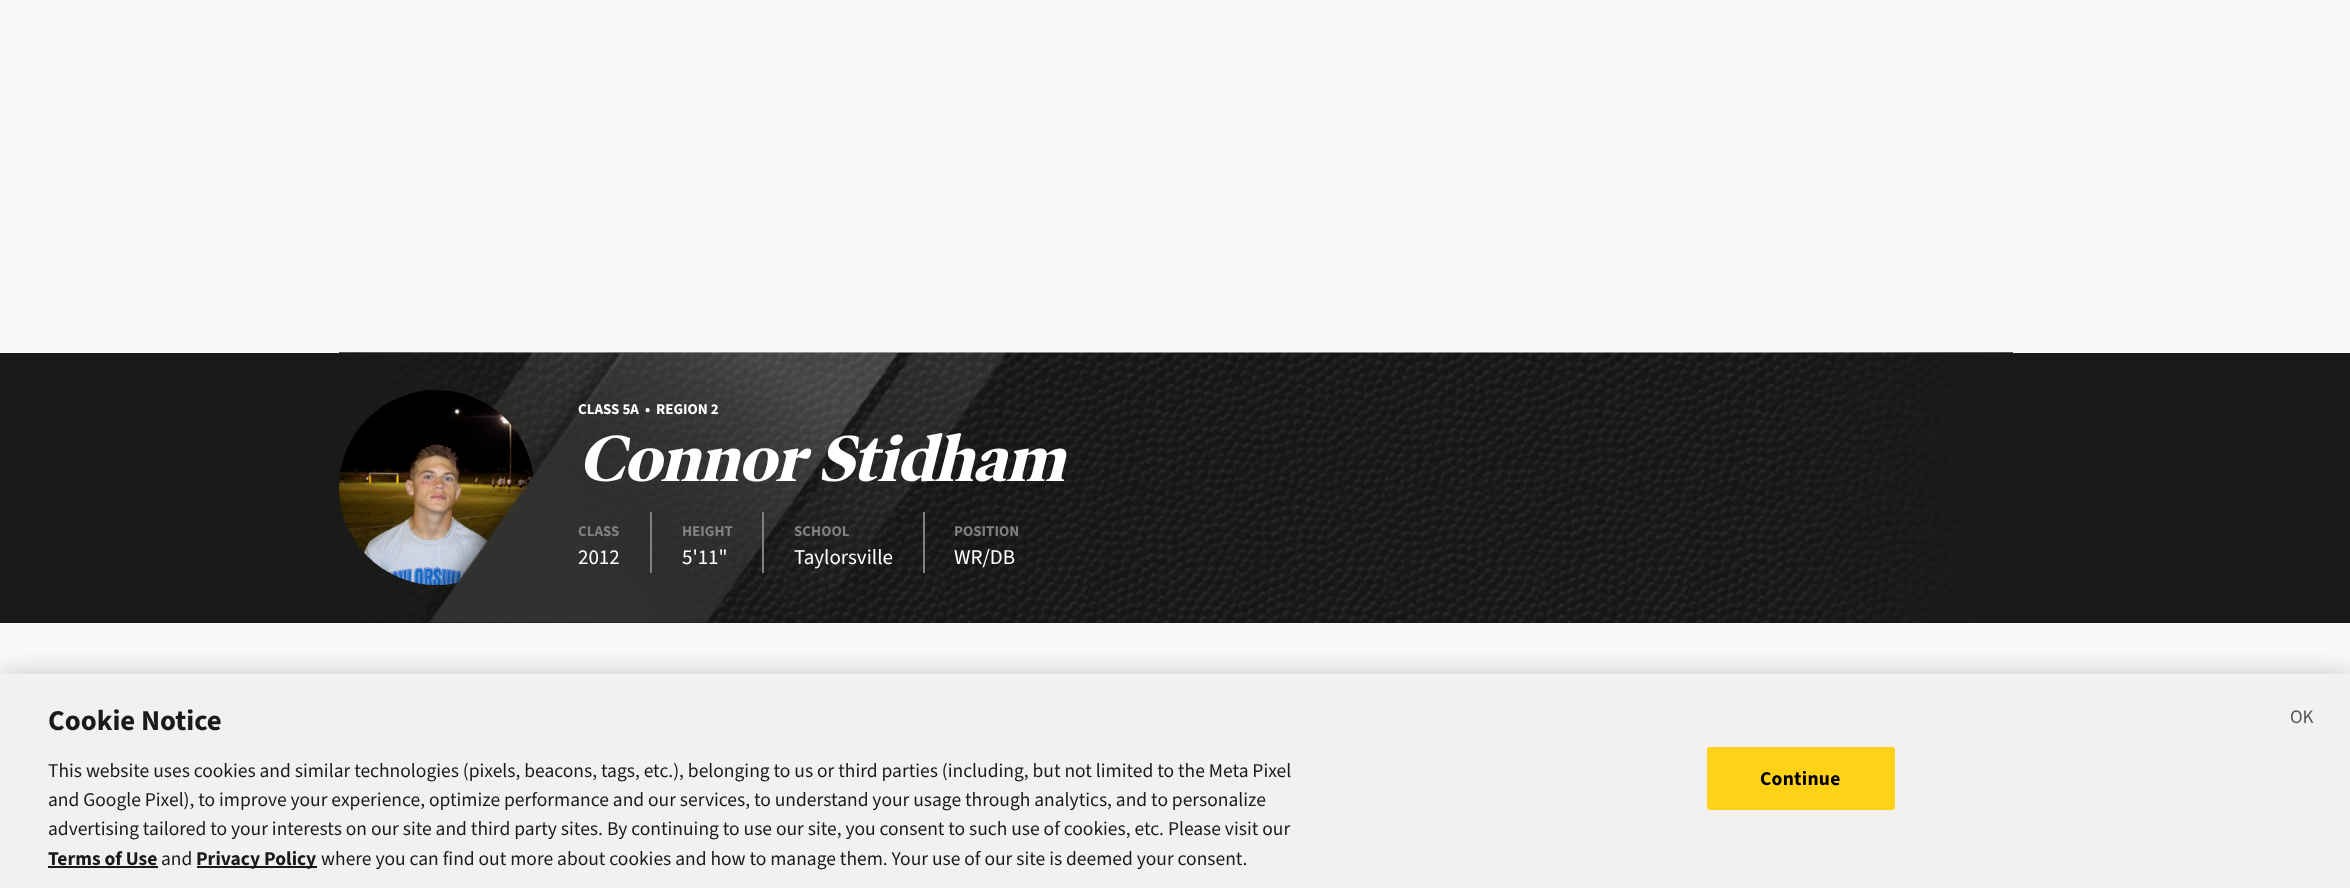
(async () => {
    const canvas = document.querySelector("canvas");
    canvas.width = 2350;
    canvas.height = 888;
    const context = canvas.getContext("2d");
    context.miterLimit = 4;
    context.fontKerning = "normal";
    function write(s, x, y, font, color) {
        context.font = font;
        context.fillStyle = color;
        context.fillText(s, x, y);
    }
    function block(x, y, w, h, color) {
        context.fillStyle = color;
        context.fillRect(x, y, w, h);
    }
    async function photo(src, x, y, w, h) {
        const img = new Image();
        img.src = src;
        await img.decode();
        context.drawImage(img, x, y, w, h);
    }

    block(0, 0, 2350, 888, "rgb(250, 249, 247)");
    block(0, 353, 2350, 270, "rgb(26, 26, 25)");
    await photo("media/1.png", 339, 352, 1674, 271);
    await photo("media/4.png", 447, 352, 179, 235);
    await photo("media/3.png", 339, 390, 195, 195);
    await photo("media/2.png", 427, 352, 580, 271);
    write("CLASS 5A  •  REGION 2", 578, 414, "bold 15px 'Source Sans 3'", "rgb(255, 255, 255)");
    write("Connor Stidham", 578, 481, "italic bold 66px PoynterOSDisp", "rgb(255, 255, 255)");
    block(650, 512, 2, 61, "rgb(128, 128, 128)");
    write("CLASS", 578, 536, "bold 15px 'Source Sans 3'", "rgb(128, 128, 128)");
    write("2012", 578, 564, "21px 'Source Sans 3'", "rgb(255, 255, 255)");
    block(762, 512, 2, 61, "rgb(128, 128, 128)");
    write("HEIGHT", 682, 536, "bold 15px 'Source Sans 3'", "rgb(128, 128, 128)");
    write("5'11\"", 682, 564, "21px 'Source Sans 3'", "rgb(255, 255, 255)");
    block(923, 512, 2, 61, "rgb(128, 128, 128)");
    write("SCHOOL", 794, 536, "bold 15px 'Source Sans 3'", "rgb(128, 128, 128)");
    write("Taylorsville", 794, 564, "21px 'Source Sans 3'", "rgb(255, 255, 255)");
    write("POSITION", 954, 536, "bold 15px 'Source Sans 3'", "rgb(128, 128, 128)");
    write("WR/DB", 954, 564, "21px 'Source Sans 3'", "rgb(255, 255, 255)");
    context.fillStyle = "rgba(0, 0, 0, 0.2)";
    context.filter = "blur(13.5px)";
    context.beginPath();
    context.rect(0, 674, 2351, 214);
    context.fill();
    context.filter = "none";
    block(0, 674, 2350, 214, "rgb(243, 241, 240)");
    write("Cookie Notice", 48, 730, "bold 28.75px 'Source Sans 3'", "rgb(26, 26, 25)");
    write("This website uses cookies and similar technologies (pixels, beacons, tags, etc.), belonging to us or third parties (including, but not limited to the Meta Pixel", 48, 777, "19.5px 'Source Sans 3'", "rgb(26, 26, 25)");
    write("and Google Pixel), to improve your experience, optimize performance and our services, to understand your usage through analytics, and to personalize", 48, 806, "19.5px 'Source Sans 3'", "rgb(26, 26, 25)");
    write("advertising tailored to your interests on our site and third party sites.", 48, 835, "19.5px 'Source Sans 3'", "rgb(26, 26, 25)");
    write("By continuing to use our site, you consent to such use of cookies, etc. Please visit our", 607, 835, "19.5px 'Source Sans 3'", "rgb(26, 26, 25)");
    write("Terms of Use", 48, 865, "bold 19.5px 'Source Sans 3'", "rgb(26, 26, 25)");
    block(48, 866, 110, 2, "rgb(26, 26, 25)");
    write("and", 161, 865, "19.5px 'Source Sans 3'", "rgb(26, 26, 25)");
    block(197, 866, 120, 2, "rgb(26, 26, 25)");
    write("Privacy Policy", 196, 865, "bold 19.5px 'Source Sans 3'", "rgb(26, 26, 25)");
    write("where you can find out more about cookies and how to manage them. Your use of our site is deemed your consent.", 321, 865, "19.5px 'Source Sans 3'", "rgb(26, 26, 25)");
    context.fillStyle = "rgb(255, 210, 23)";
    context.beginPath();
    context.roundRect(1708, 748, 186, 61, 2);
    context.fill();
    context.strokeStyle = "rgb(255, 210, 23)";
    context.lineWidth = 2;
    context.stroke();
    context.letterSpacing = "0.25px";
    write("Continue", 1760, 785, "bold 19.5px 'Source Sans 3'", "rgb(0, 0, 0)");
    context.letterSpacing = "0px";
    write("OK", 2290, 723, "19px 'Source Sans 3'", "rgb(85, 85, 85)");
})();
